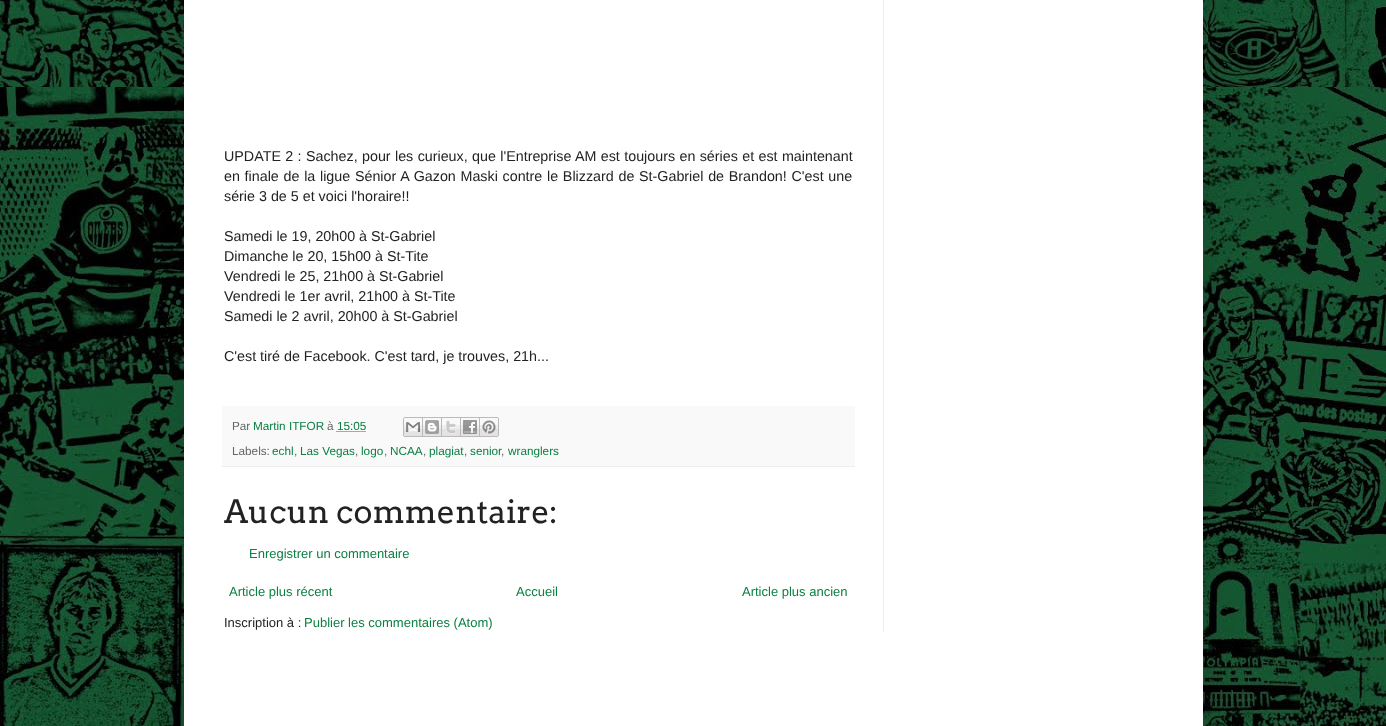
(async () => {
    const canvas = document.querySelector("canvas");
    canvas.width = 1386;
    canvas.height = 726;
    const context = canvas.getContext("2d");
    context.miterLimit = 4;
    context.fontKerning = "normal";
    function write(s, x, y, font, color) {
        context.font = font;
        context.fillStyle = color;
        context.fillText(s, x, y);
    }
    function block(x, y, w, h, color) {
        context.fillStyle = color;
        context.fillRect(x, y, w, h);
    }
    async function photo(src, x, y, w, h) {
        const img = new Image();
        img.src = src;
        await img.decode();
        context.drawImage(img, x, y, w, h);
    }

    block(0, 0, 1386, 726, "rgb(255, 255, 255)");
    await photo("media/1.png", 0, 0, 1386, 726);
    context.fillStyle = "rgba(0, 0, 0, 0.15)";
    context.filter = "blur(20px)";
    context.beginPath();
    context.rect(184, -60, 1019, 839);
    context.fill();
    context.filter = "none";
    block(184, 0, 1019, 726, "rgb(255, 255, 255)");
    context.wordSpacing = "0.4px";
    write("UPDATE 2 : Sachez, pour les curieux, que l'Entreprise AM est toujours en séries et est maintenant", 224, 161, "14.3px Liberation Sans", "rgb(34, 34, 34)");
    context.wordSpacing = "0.75px";
    write("en finale de la ligue Sénior A Gazon Maski contre le Blizzard de St-Gabriel de Brandon! C'est une", 224, 181, "14.3px Liberation Sans", "rgb(34, 34, 34)");
    context.wordSpacing = "0px";
    write("série 3 de 5 et voici l'horaire!!", 224, 201, "14.3px Liberation Sans", "rgb(34, 34, 34)");
    write("Samedi le 19, 20h00 à St-Gabriel", 224, 241, "14.3px Liberation Sans", "rgb(34, 34, 34)");
    write("Dimanche le 20, 15h00 à St-Tite", 224, 261, "14.3px Liberation Sans", "rgb(34, 34, 34)");
    write("Vendredi le 25, 21h00 à St-Gabriel", 224, 281, "14.3px Liberation Sans", "rgb(34, 34, 34)");
    write("Vendredi le 1er avril, 21h00 à St-Tite", 224, 301, "14.3px Liberation Sans", "rgb(34, 34, 34)");
    write("Samedi le 2 avril, 20h00 à St-Gabriel", 224, 321, "14.3px Liberation Sans", "rgb(34, 34, 34)");
    write("C'est tiré de Facebook. C'est tard, je trouves, 21h...", 224, 361, "14.3px Liberation Sans", "rgb(34, 34, 34)");
    block(222, 406, 633, 60, "rgb(249, 249, 249)");
    block(222, 466, 633, 1, "rgb(238, 238, 238)");
    write("Par", 232, 430, "11.75px Liberation Sans", "rgb(102, 102, 102)");
    write("Martin ITFOR", 253, 430, "11.75px Liberation Sans", "rgb(11, 128, 67)");
    write("à", 327, 430, "11.75px Liberation Sans", "rgb(102, 102, 102)");
    write("15:05", 337, 430, "11.75px Liberation Sans", "rgb(11, 128, 67)");
    context.beginPath();
    context.moveTo(336.5, 431.5);
    context.lineTo(366, 431.5);
    context.strokeStyle = "rgb(11, 128, 67)";
    context.setLineDash([1, 1]);
    context.stroke();
    await photo("media/2.png", 403, 417, 20, 20);
    await photo("media/3.png", 423, 417, 19, 20);
    await photo("media/4.png", 442, 417, 19, 20);
    await photo("media/5.png", 461, 417, 19, 20);
    await photo("media/6.png", 480, 417, 19, 20);
    write("Labels:", 232, 455, "11.75px Liberation Sans", "rgb(102, 102, 102)");
    write("echl", 272, 455, "11.75px Liberation Sans", "rgb(11, 128, 67)");
    write(",", 294, 455, "11.75px Liberation Sans", "rgb(102, 102, 102)");
    write("Las Vegas", 300, 455, "11.75px Liberation Sans", "rgb(11, 128, 67)");
    write(",", 355, 455, "11.75px Liberation Sans", "rgb(102, 102, 102)");
    write("logo", 361, 455, "11.75px Liberation Sans", "rgb(11, 128, 67)");
    write(",", 384, 455, "11.75px Liberation Sans", "rgb(102, 102, 102)");
    write("NCAA", 390, 455, "11.75px Liberation Sans", "rgb(11, 128, 67)");
    write(",", 423, 455, "11.75px Liberation Sans", "rgb(102, 102, 102)");
    write("plagiat", 429, 455, "11.75px Liberation Sans", "rgb(11, 128, 67)");
    write(",", 464, 455, "11.75px Liberation Sans", "rgb(102, 102, 102)");
    write("senior", 470, 455, "11.75px Liberation Sans", "rgb(11, 128, 67)");
    write(",", 501, 455, "11.75px Liberation Sans", "rgb(102, 102, 102)");
    write("wranglers", 508, 455, "11.75px Liberation Sans", "rgb(11, 128, 67)");
    write("Aucun commentaire:", 224, 523, "32px Arvo", "rgb(34, 34, 34)");
    write("Enregistrer un commentaire", 249, 558, "13px Liberation Sans", "rgb(11, 128, 67)");
    write("Article plus récent", 229, 596, "13px Liberation Sans", "rgb(11, 128, 67)");
    write("Accueil", 516, 596, "13px Liberation Sans", "rgb(11, 128, 67)");
    write("Article plus ancien", 742, 596, "13px Liberation Sans", "rgb(11, 128, 67)");
    write("Inscription à :", 224, 627, "13px Liberation Sans", "rgb(34, 34, 34)");
    write("Publier les commentaires (Atom)", 304, 627, "13px Liberation Sans", "rgb(11, 128, 67)");
    block(883, 0, 1, 632, "rgb(238, 238, 238)");
})();
